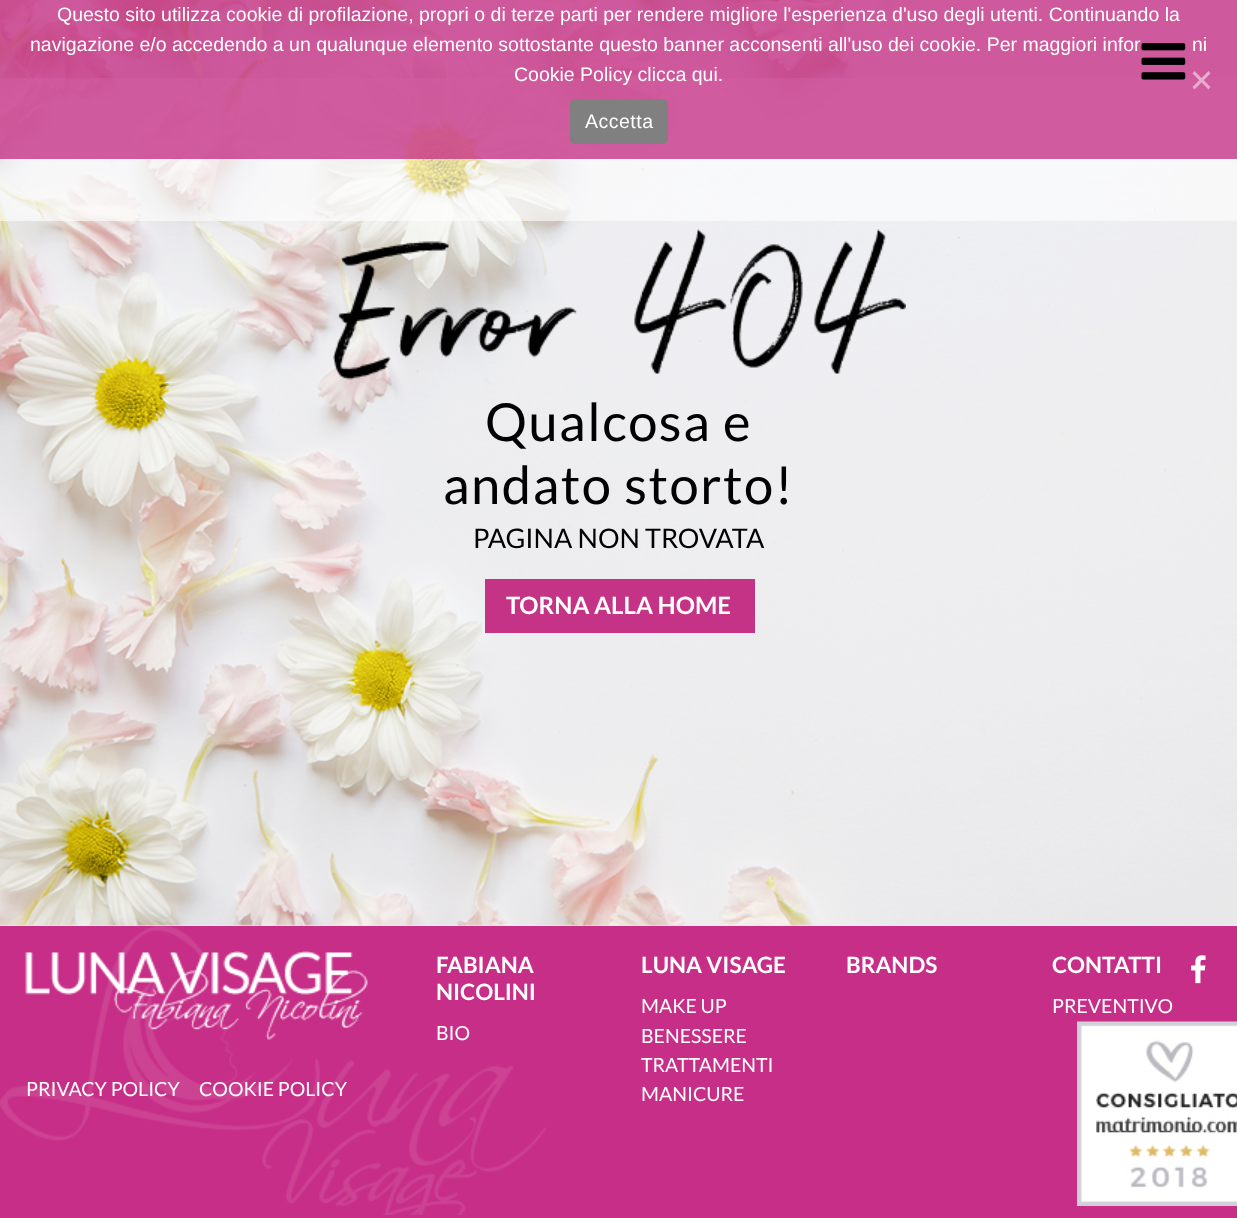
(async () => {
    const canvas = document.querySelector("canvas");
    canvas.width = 1237;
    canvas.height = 1218;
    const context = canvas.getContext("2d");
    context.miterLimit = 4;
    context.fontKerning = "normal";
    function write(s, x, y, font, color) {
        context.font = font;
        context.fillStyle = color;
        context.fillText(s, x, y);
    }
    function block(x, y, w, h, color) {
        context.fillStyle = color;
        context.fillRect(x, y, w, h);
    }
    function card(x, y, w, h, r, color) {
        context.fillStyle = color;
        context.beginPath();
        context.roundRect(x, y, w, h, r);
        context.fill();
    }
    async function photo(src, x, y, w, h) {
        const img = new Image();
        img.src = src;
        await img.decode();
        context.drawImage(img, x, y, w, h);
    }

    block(0, 0, 1237, 1218, "rgb(237, 237, 239)");
    await photo("media/1.png", 0, 0, 1237, 926);
    block(0, 78, 1237, 143, "rgba(255, 255, 255, 0.6)");
    block(0, 0, 1237, 159, "rgba(197, 51, 135, 0.8)");
    write("Questo sito utilizza cookie di profilazione, propri o di terze parti per rendere migliore l'esperienza d'uso degli utenti. Continuando la", 57, 21, "19.5px Liberation Sans", "rgb(255, 255, 255)");
    write("navigazione e/o accedendo a un qualunque elemento sottostante questo banner acconsenti all'uso dei cookie. Per maggiori infor", 30, 51, "19.5px Liberation Sans", "rgb(255, 255, 255)");
    write("ni", 1192, 51, "19.5px Liberation Sans", "rgb(255, 255, 255)");
    write("Cookie Policy clicca qui.", 514, 81, "19.5px Liberation Sans", "rgb(255, 255, 255)");
    context.fillStyle = "rgb(231, 172, 206)";
    context.beginPath();
    context.moveTo(1208.5, 71);
    context.lineTo(1210.5, 73.5);
    context.lineTo(1194.5, 89.5);
    context.lineTo(1192.5, 87);
    context.closePath();
    context.fill();
    context.beginPath();
    context.moveTo(1192.5, 73.5);
    context.lineTo(1194.5, 71);
    context.lineTo(1210.5, 87);
    context.lineTo(1208.5, 89.5);
    context.closePath();
    context.fill();
    card(570, 99, 98, 45, 5, "rgb(128, 128, 128)");
    context.letterSpacing = "0.5px";
    write("Accetta", 585, 128, "19.5px Liberation Sans", "rgb(255, 255, 255)");
    await photo("media/2.png", 333, 229, 573, 151);
    context.letterSpacing = "1.5px";
    write("Qualcosa e", 485, 441, "52.5px Lato", "rgb(0, 0, 0)");
    write("andato storto!", 443, 504, "52.5px Lato", "rgb(0, 0, 0)");
    context.letterSpacing = "0px";
    write("PAGINA NON TROVATA", 473, 548, "27px Lato", "rgb(0, 0, 0)");
    block(485, 579, 270, 54, "rgb(197, 51, 135)");
    write("TORNA ALLA HOME", 506, 614, "bold 24px Lato", "rgb(255, 255, 255)");
    block(0, 926, 1237, 292, "rgb(199, 46, 136)");
    await photo("media/3.png", 0, 926, 546, 289);
    write("FABIANA", 436, 973, "bold 22.5px Lato", "rgb(255, 255, 255)");
    write("NICOLINI", 436, 1000, "bold 22.5px Lato", "rgb(255, 255, 255)");
    write("BIO", 436, 1040, "19.5px Lato", "rgb(255, 255, 255)");
    write("LUNA VISAGE", 641, 973, "bold 22.5px Lato", "rgb(255, 255, 255)");
    write("MAKE UP", 641, 1013, "19.5px Lato", "rgb(255, 255, 255)");
    write("BENESSERE", 641, 1043, "19.5px Lato", "rgb(255, 255, 255)");
    write("TRATTAMENTI", 641, 1072, "19.5px Lato", "rgb(255, 255, 255)");
    write("MANICURE", 641, 1101, "19.5px Lato", "rgb(255, 255, 255)");
    write("BRANDS", 846, 973, "bold 22.5px Lato", "rgb(255, 255, 255)");
    write("CONTATTI", 1052, 973, "bold 22.5px Lato", "rgb(255, 255, 255)");
    await photo("media/4.png", 1191, 955, 15, 29);
    write("PREVENTIVO", 1052, 1013, "19.5px Lato", "rgb(255, 255, 255)");
    await photo("media/5.png", 1077, 1021, 160, 185);
    await photo("media/6.png", 25, 951, 343, 89);
    write("PRIVACY POLICY", 26, 1096, "19.5px Lato", "rgb(255, 255, 255)");
    write("COOKIE POLICY", 199, 1096, "19.5px Lato", "rgb(255, 255, 255)");
    await photo("media/7.png", 1141, 43, 45, 37);
})();
